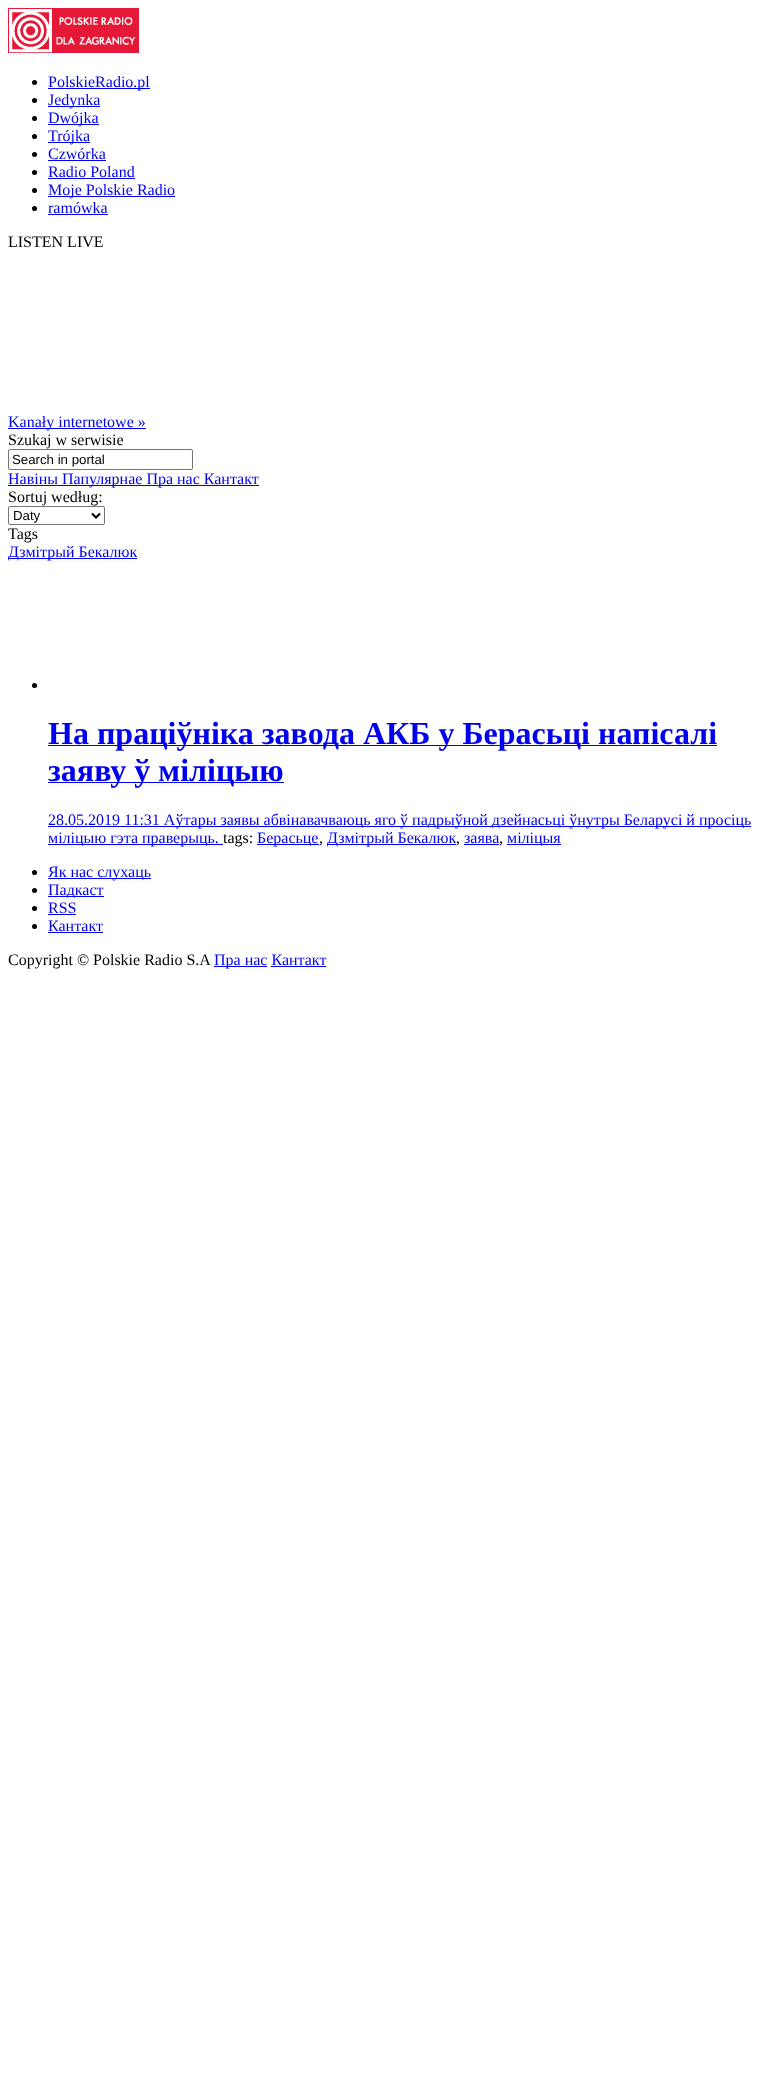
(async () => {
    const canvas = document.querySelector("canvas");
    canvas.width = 778;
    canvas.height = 2086;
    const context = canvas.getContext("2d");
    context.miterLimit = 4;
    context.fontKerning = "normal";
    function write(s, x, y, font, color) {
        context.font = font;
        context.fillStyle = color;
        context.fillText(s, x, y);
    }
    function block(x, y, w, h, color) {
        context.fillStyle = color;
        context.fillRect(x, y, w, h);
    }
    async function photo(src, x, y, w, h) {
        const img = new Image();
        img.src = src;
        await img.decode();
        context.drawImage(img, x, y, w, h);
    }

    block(0, 0, 778, 2086, "rgb(255, 255, 255)");
    await photo("media/1.png", 8, 8, 131, 45);
    context.fillStyle = "rgb(0, 0, 0)";
    context.beginPath();
    context.arc(34.5, 82.5, 2.5, 0, Math.PI * 2);
    context.fill();
    block(48, 88, 102, 1, "rgb(0, 0, 238)");
    write("PolskieRadio.pl", 48, 87, "16px Liberation Serif", "rgb(0, 0, 238)");
    context.fillStyle = "rgb(0, 0, 0)";
    context.beginPath();
    context.arc(34.5, 100.5, 2.5, 0, Math.PI * 2);
    context.fill();
    block(48, 106, 52, 1, "rgb(0, 0, 238)");
    write("Jedynka", 48, 105, "16px Liberation Serif", "rgb(0, 0, 238)");
    context.fillStyle = "rgb(0, 0, 0)";
    context.beginPath();
    context.arc(34.5, 118.5, 2.5, 0, Math.PI * 2);
    context.fill();
    block(48, 124, 51, 1, "rgb(0, 0, 238)");
    write("Dwójka", 48, 123, "16px Liberation Serif", "rgb(0, 0, 238)");
    context.fillStyle = "rgb(0, 0, 0)";
    context.beginPath();
    context.arc(34.5, 136.5, 2.5, 0, Math.PI * 2);
    context.fill();
    block(48, 142, 42, 1, "rgb(0, 0, 238)");
    write("Trójka", 48, 141, "16px Liberation Serif", "rgb(0, 0, 238)");
    context.fillStyle = "rgb(0, 0, 0)";
    context.beginPath();
    context.arc(34.5, 154.5, 2.5, 0, Math.PI * 2);
    context.fill();
    write("Czwórka", 48, 159, "16px Liberation Serif", "rgb(0, 0, 238)");
    block(48, 160, 58, 1, "rgb(0, 0, 238)");
    context.fillStyle = "rgb(0, 0, 0)";
    context.beginPath();
    context.arc(34.5, 172.5, 2.5, 0, Math.PI * 2);
    context.fill();
    write("Radio Poland", 48, 177, "16px Liberation Serif", "rgb(0, 0, 238)");
    block(48, 178, 87, 1, "rgb(0, 0, 238)");
    context.fillStyle = "rgb(0, 0, 0)";
    context.beginPath();
    context.arc(34.5, 190.5, 2.5, 0, Math.PI * 2);
    context.fill();
    block(48, 196, 127, 1, "rgb(0, 0, 238)");
    write("Moje Polskie Radio", 48, 195, "16px Liberation Serif", "rgb(0, 0, 238)");
    context.fillStyle = "rgb(0, 0, 0)";
    context.beginPath();
    context.arc(34.5, 208.5, 2.5, 0, Math.PI * 2);
    context.fill();
    write("ramówka", 48, 213, "16px Liberation Serif", "rgb(0, 0, 238)");
    block(48, 214, 60, 1, "rgb(0, 0, 238)");
    write("LISTEN LIVE", 8, 247, "16px Liberation Serif", "rgb(0, 0, 0)");
    block(8, 428, 138, 1, "rgb(0, 0, 238)");
    write("Kanały internetowe »", 8, 427, "16px Liberation Serif", "rgb(0, 0, 238)");
    write("Szukaj w serwisie", 8, 445, "16px Liberation Serif", "rgb(0, 0, 0)");
    context.beginPath();
    context.roundRect(8.5, 449.5, 184, 20, 1.5);
    context.strokeStyle = "rgb(118, 118, 118)";
    context.stroke();
    write("Search in portal", 12, 464, "13.25px Liberation Sans", "rgb(0, 0, 0)");
    block(8, 485, 251, 1, "rgb(0, 0, 238)");
    write("Навіны Папулярнае Пра нас Кантакт", 8, 484, "16px Liberation Serif", "rgb(0, 0, 238)");
    write("Sortuj według:", 8, 502, "16px Liberation Serif", "rgb(0, 0, 0)");
    context.beginPath();
    context.roundRect(8.5, 506.5, 96, 18, 1.5);
    context.stroke();
    context.beginPath();
    context.moveTo(92, 513.5);
    context.lineTo(96, 517.5);
    context.lineTo(100, 513.5);
    context.strokeStyle = "rgb(0, 0, 0)";
    context.lineWidth = 2;
    context.stroke();
    write("Daty", 13, 520, "13.25px Liberation Sans", "rgb(0, 0, 0)");
    write("Tags", 8, 539, "16px Liberation Serif", "rgb(0, 0, 0)");
    block(8, 558, 129, 1, "rgb(0, 0, 238)");
    write("Дзмітрый Бекалюк", 8, 557, "16px Liberation Serif", "rgb(0, 0, 238)");
    context.fillStyle = "rgb(0, 0, 0)";
    context.beginPath();
    context.arc(34.5, 685.5, 2.5, 0, Math.PI * 2);
    context.fill();
    block(48, 745, 669, 1, "rgb(0, 0, 238)");
    write("На праціўніка завода АКБ у Берасьці напісалі", 48, 744, "bold 32px Liberation Serif", "rgb(0, 0, 238)");
    block(48, 782, 236, 1, "rgb(0, 0, 238)");
    write("заяву ў міліцыю", 48, 781, "bold 32px Liberation Serif", "rgb(0, 0, 238)");
    block(48, 826, 703, 1, "rgb(0, 0, 238)");
    write("28.05.2019 11:31 Аўтары заявы абвінавачваюць яго ў падрыўной дзейнасьці ўнутры Беларусі й просіць", 48, 825, "16px Liberation Serif", "rgb(0, 0, 238)");
    block(48, 844, 175, 1, "rgb(0, 0, 238)");
    write("міліцыю гэта праверыць.", 48, 843, "16px Liberation Serif", "rgb(0, 0, 238)");
    write("tags:", 223, 843, "16px Liberation Serif", "rgb(0, 0, 0)");
    block(257, 844, 62, 1, "rgb(0, 0, 238)");
    write("Берасьце", 257, 843, "16px Liberation Serif", "rgb(0, 0, 238)");
    write(",", 319, 843, "16px Liberation Serif", "rgb(0, 0, 0)");
    block(327, 844, 129, 1, "rgb(0, 0, 238)");
    write("Дзмітрый Бекалюк", 327, 843, "16px Liberation Serif", "rgb(0, 0, 238)");
    write(",", 456, 843, "16px Liberation Serif", "rgb(0, 0, 0)");
    write("заявa", 464, 843, "16px Liberation Serif", "rgb(0, 0, 238)");
    write(",", 499, 843, "16px Liberation Serif", "rgb(0, 0, 0)");
    block(464, 844, 35, 1, "rgb(0, 0, 238)");
    block(507, 844, 54, 1, "rgb(0, 0, 238)");
    write("міліцыя", 507, 843, "16px Liberation Serif", "rgb(0, 0, 238)");
    context.fillStyle = "rgb(0, 0, 0)";
    context.beginPath();
    context.arc(34.5, 872.5, 2.5, 0, Math.PI * 2);
    context.fill();
    block(48, 878, 103, 1, "rgb(0, 0, 238)");
    write("Як нас слухаць", 48, 877, "16px Liberation Serif", "rgb(0, 0, 238)");
    context.fillStyle = "rgb(0, 0, 0)";
    context.beginPath();
    context.arc(34.5, 890.5, 2.5, 0, Math.PI * 2);
    context.fill();
    block(48, 896, 56, 1, "rgb(0, 0, 238)");
    write("Падкаст", 48, 895, "16px Liberation Serif", "rgb(0, 0, 238)");
    context.fillStyle = "rgb(0, 0, 0)";
    context.beginPath();
    context.arc(34.5, 908.5, 2.5, 0, Math.PI * 2);
    context.fill();
    write("RSS", 48, 913, "16px Liberation Serif", "rgb(0, 0, 238)");
    block(48, 914, 28, 1, "rgb(0, 0, 238)");
    context.fillStyle = "rgb(0, 0, 0)";
    context.beginPath();
    context.arc(34.5, 926.5, 2.5, 0, Math.PI * 2);
    context.fill();
    write("Кантакт", 48, 931, "16px Liberation Serif", "rgb(0, 0, 238)");
    block(48, 932, 55, 1, "rgb(0, 0, 238)");
    write("Copyright © Polskie Radio S.A", 8, 965, "16px Liberation Serif", "rgb(0, 0, 0)");
    block(214, 966, 53, 1, "rgb(0, 0, 238)");
    write("Пра нас Кантакт", 214, 965, "16px Liberation Serif", "rgb(0, 0, 238)");
    block(271, 966, 55, 1, "rgb(0, 0, 238)");
})();
